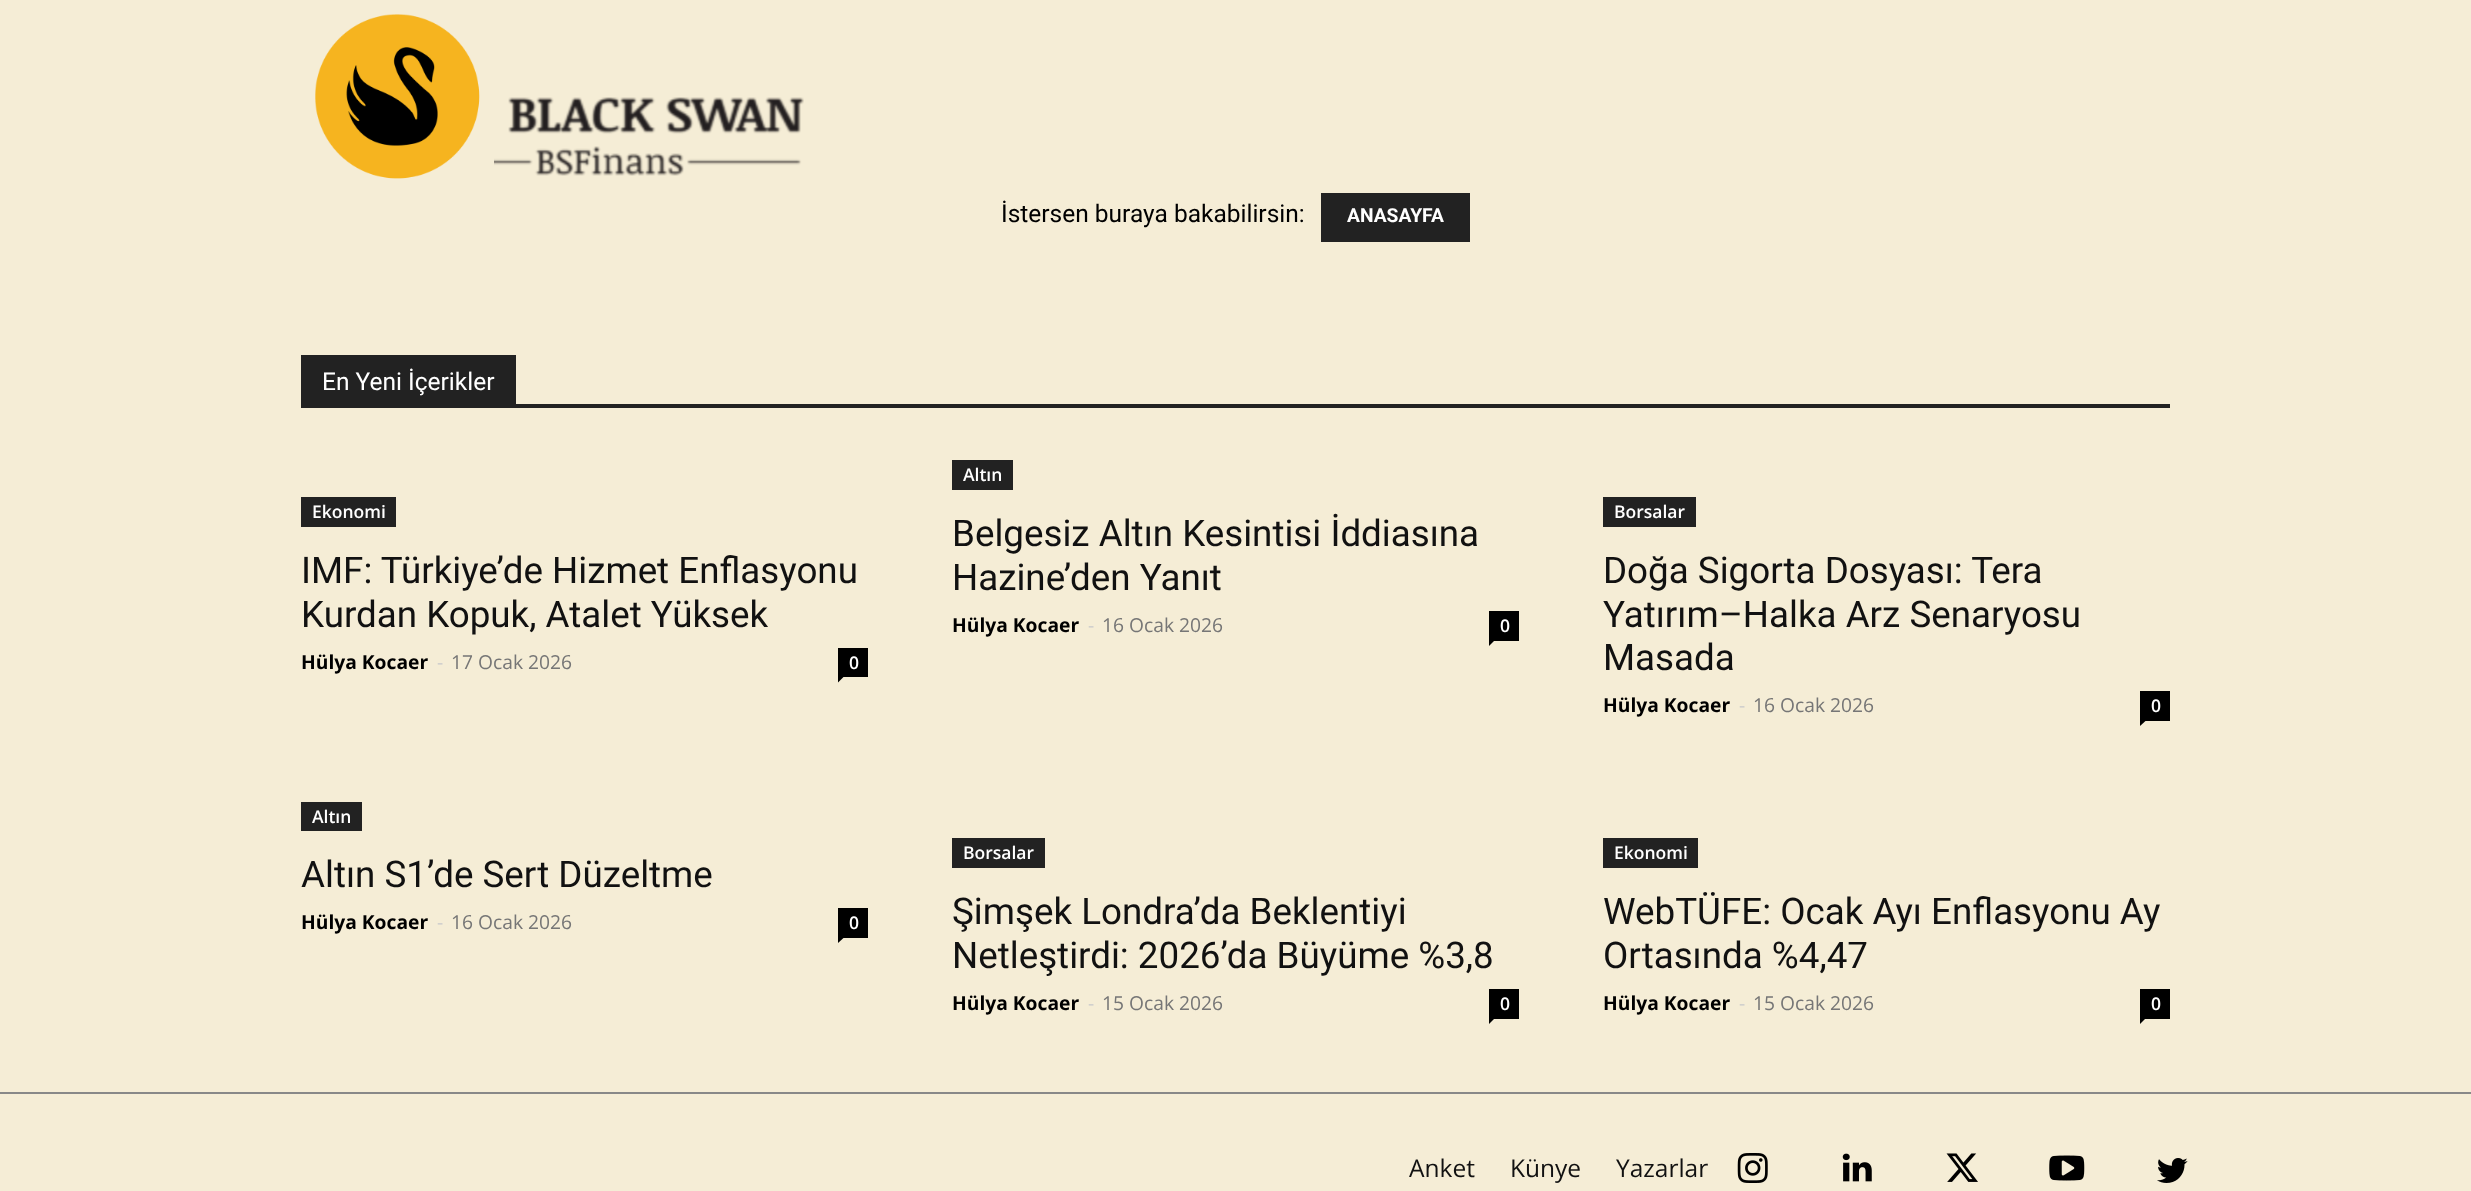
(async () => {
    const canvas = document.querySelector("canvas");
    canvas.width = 2471;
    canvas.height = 1191;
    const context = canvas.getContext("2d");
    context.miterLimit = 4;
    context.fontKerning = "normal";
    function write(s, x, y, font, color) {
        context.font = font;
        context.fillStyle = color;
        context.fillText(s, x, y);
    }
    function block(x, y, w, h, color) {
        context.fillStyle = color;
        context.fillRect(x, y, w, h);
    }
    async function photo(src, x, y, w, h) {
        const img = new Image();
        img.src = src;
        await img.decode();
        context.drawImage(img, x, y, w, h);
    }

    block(0, 0, 2471, 1191, "rgb(245, 237, 214)");
    await photo("media/1.png", 315, 14, 165, 165);
    await photo("media/2.png", 494, 97, 310, 79);
    write("İstersen buraya bakabilirsin:", 1001, 222, "24.5px Roboto", "rgb(0, 0, 0)");
    block(1321, 193, 149, 49, "rgb(34, 34, 34)");
    write("ANASAYFA", 1347, 222, "bold 19.25px Roboto", "rgb(255, 255, 255)");
    block(301, 404, 1869, 4, "rgb(34, 34, 34)");
    block(301, 355, 215, 49, "rgb(34, 34, 34)");
    write("En Yeni İçerikler", 322, 390, "24.5px Roboto", "rgb(255, 255, 255)");
    block(301, 497, 95, 30, "rgb(34, 34, 34)");
    write("Ekonomi", 312, 518, "600 17.5px Open Sans", "rgb(255, 255, 255)");
    write("IMF: Türkiye’de Hizmet Enflasyonu", 301, 583, "36.75px Roboto", "rgb(17, 17, 17)");
    write("Kurdan Kopuk, Atalet Yüksek", 301, 627, "36.75px Roboto", "rgb(17, 17, 17)");
    write("Hülya Kocaer", 301, 669, "bold 19.25px Open Sans", "rgb(0, 0, 0)");
    write("-", 437, 669, "19.25px Open Sans", "rgb(204, 204, 204)");
    write("17 Ocak 2026", 451, 669, "19.25px Open Sans", "rgb(118, 118, 118)");
    block(838, 648, 30, 29, "rgb(0, 0, 0)");
    write("0", 849, 669, "600 17.5px Open Sans", "rgb(255, 255, 255)");
    context.fillStyle = "rgb(0, 0, 0)";
    context.beginPath();
    context.moveTo(838, 677);
    context.lineTo(843.5, 677);
    context.lineTo(838, 682.5);
    context.closePath();
    context.fill();
    block(952, 460, 61, 30, "rgb(34, 34, 34)");
    write("Altın", 963, 481, "600 17.5px Open Sans", "rgb(255, 255, 255)");
    write("Belgesiz Altın Kesintisi İddiasına", 952, 546, "36.75px Roboto", "rgb(17, 17, 17)");
    write("Hazine’den Yanıt", 952, 590, "36.75px Roboto", "rgb(17, 17, 17)");
    write("Hülya Kocaer", 952, 632, "bold 19.25px Open Sans", "rgb(0, 0, 0)");
    write("-", 1088, 632, "19.25px Open Sans", "rgb(204, 204, 204)");
    write("16 Ocak 2026", 1102, 632, "19.25px Open Sans", "rgb(118, 118, 118)");
    block(1489, 611, 30, 30, "rgb(0, 0, 0)");
    write("0", 1500, 632, "600 17.5px Open Sans", "rgb(255, 255, 255)");
    context.fillStyle = "rgb(0, 0, 0)";
    context.beginPath();
    context.moveTo(1489, 640.5);
    context.lineTo(1494.5, 640.5);
    context.lineTo(1489, 646);
    context.closePath();
    context.fill();
    block(1603, 497, 93, 30, "rgb(34, 34, 34)");
    write("Borsalar", 1614, 518, "600 17.5px Open Sans", "rgb(255, 255, 255)");
    write("Doğa Sigorta Dosyası: Tera", 1603, 583, "36.75px Roboto", "rgb(17, 17, 17)");
    write("Yatırım–Halka Arz Senaryosu", 1603, 627, "36.75px Roboto", "rgb(17, 17, 17)");
    write("Masada", 1603, 670, "36.75px Roboto", "rgb(17, 17, 17)");
    write("Hülya Kocaer", 1603, 712, "bold 19.25px Open Sans", "rgb(0, 0, 0)");
    write("-", 1739, 712, "19.25px Open Sans", "rgb(204, 204, 204)");
    write("16 Ocak 2026", 1753, 712, "19.25px Open Sans", "rgb(118, 118, 118)");
    block(2140, 691, 30, 30, "rgb(0, 0, 0)");
    write("0", 2151, 712, "600 17.5px Open Sans", "rgb(255, 255, 255)");
    context.fillStyle = "rgb(0, 0, 0)";
    context.beginPath();
    context.moveTo(2140, 721);
    context.lineTo(2145.5, 721);
    context.lineTo(2140, 726);
    context.closePath();
    context.fill();
    block(301, 802, 61, 29, "rgb(34, 34, 34)");
    write("Altın", 312, 823, "600 17.5px Open Sans", "rgb(255, 255, 255)");
    write("Altın S1’de Sert Düzeltme", 301, 887, "36.75px Roboto", "rgb(17, 17, 17)");
    write("Hülya Kocaer", 301, 929, "bold 19.25px Open Sans", "rgb(0, 0, 0)");
    write("-", 437, 929, "19.25px Open Sans", "rgb(204, 204, 204)");
    write("16 Ocak 2026", 451, 929, "19.25px Open Sans", "rgb(118, 118, 118)");
    block(838, 908, 30, 30, "rgb(0, 0, 0)");
    write("0", 849, 929, "600 17.5px Open Sans", "rgb(255, 255, 255)");
    context.fillStyle = "rgb(0, 0, 0)";
    context.beginPath();
    context.moveTo(838, 938);
    context.lineTo(843.5, 938);
    context.lineTo(838, 943);
    context.closePath();
    context.fill();
    block(952, 838, 93, 30, "rgb(34, 34, 34)");
    write("Borsalar", 963, 859, "600 17.5px Open Sans", "rgb(255, 255, 255)");
    write("Şimşek Londra’da Beklentiyi", 952, 924, "36.75px Roboto", "rgb(17, 17, 17)");
    write("Netleştirdi: 2026’da Büyüme %3,8", 952, 968, "36.75px Roboto", "rgb(17, 17, 17)");
    write("Hülya Kocaer", 952, 1010, "bold 19.25px Open Sans", "rgb(0, 0, 0)");
    write("-", 1088, 1010, "19.25px Open Sans", "rgb(204, 204, 204)");
    write("15 Ocak 2026", 1102, 1010, "19.25px Open Sans", "rgb(118, 118, 118)");
    block(1489, 989, 30, 30, "rgb(0, 0, 0)");
    write("0", 1500, 1010, "600 17.5px Open Sans", "rgb(255, 255, 255)");
    context.fillStyle = "rgb(0, 0, 0)";
    context.beginPath();
    context.moveTo(1489, 1018.5);
    context.lineTo(1494.5, 1018.5);
    context.lineTo(1489, 1024);
    context.closePath();
    context.fill();
    block(1603, 838, 95, 30, "rgb(34, 34, 34)");
    write("Ekonomi", 1614, 859, "600 17.5px Open Sans", "rgb(255, 255, 255)");
    write("WebTÜFE: Ocak Ayı Enflasyonu Ay", 1603, 924, "36.75px Roboto", "rgb(17, 17, 17)");
    write("Ortasında %4,47", 1603, 968, "36.75px Roboto", "rgb(17, 17, 17)");
    write("Hülya Kocaer", 1603, 1010, "bold 19.25px Open Sans", "rgb(0, 0, 0)");
    write("-", 1739, 1010, "19.25px Open Sans", "rgb(204, 204, 204)");
    write("15 Ocak 2026", 1753, 1010, "19.25px Open Sans", "rgb(118, 118, 118)");
    block(2140, 989, 30, 30, "rgb(0, 0, 0)");
    write("0", 2151, 1010, "600 17.5px Open Sans", "rgb(255, 255, 255)");
    context.fillStyle = "rgb(0, 0, 0)";
    context.beginPath();
    context.moveTo(2140, 1018.5);
    context.lineTo(2145.5, 1018.5);
    context.lineTo(2140, 1024);
    context.closePath();
    context.fill();
    block(0, 1092, 2471, 2, "rgb(136, 136, 136)");
    write("Anket", 1409, 1177, "24.5px Open Sans", "rgb(17, 17, 17)");
    write("Künye", 1510, 1177, "24.5px Open Sans", "rgb(17, 17, 17)");
    write("Yazarlar", 1616, 1177, "24.5px Open Sans", "rgb(17, 17, 17)");
    await photo("media/3.png", 1737, 1153, 31, 30);
    await photo("media/4.png", 1842, 1153, 30, 29);
    await photo("media/5.png", 1946, 1153, 32, 29);
    await photo("media/6.png", 2049, 1155, 36, 26);
    await photo("media/7.png", 2157, 1158, 31, 25);
})();
